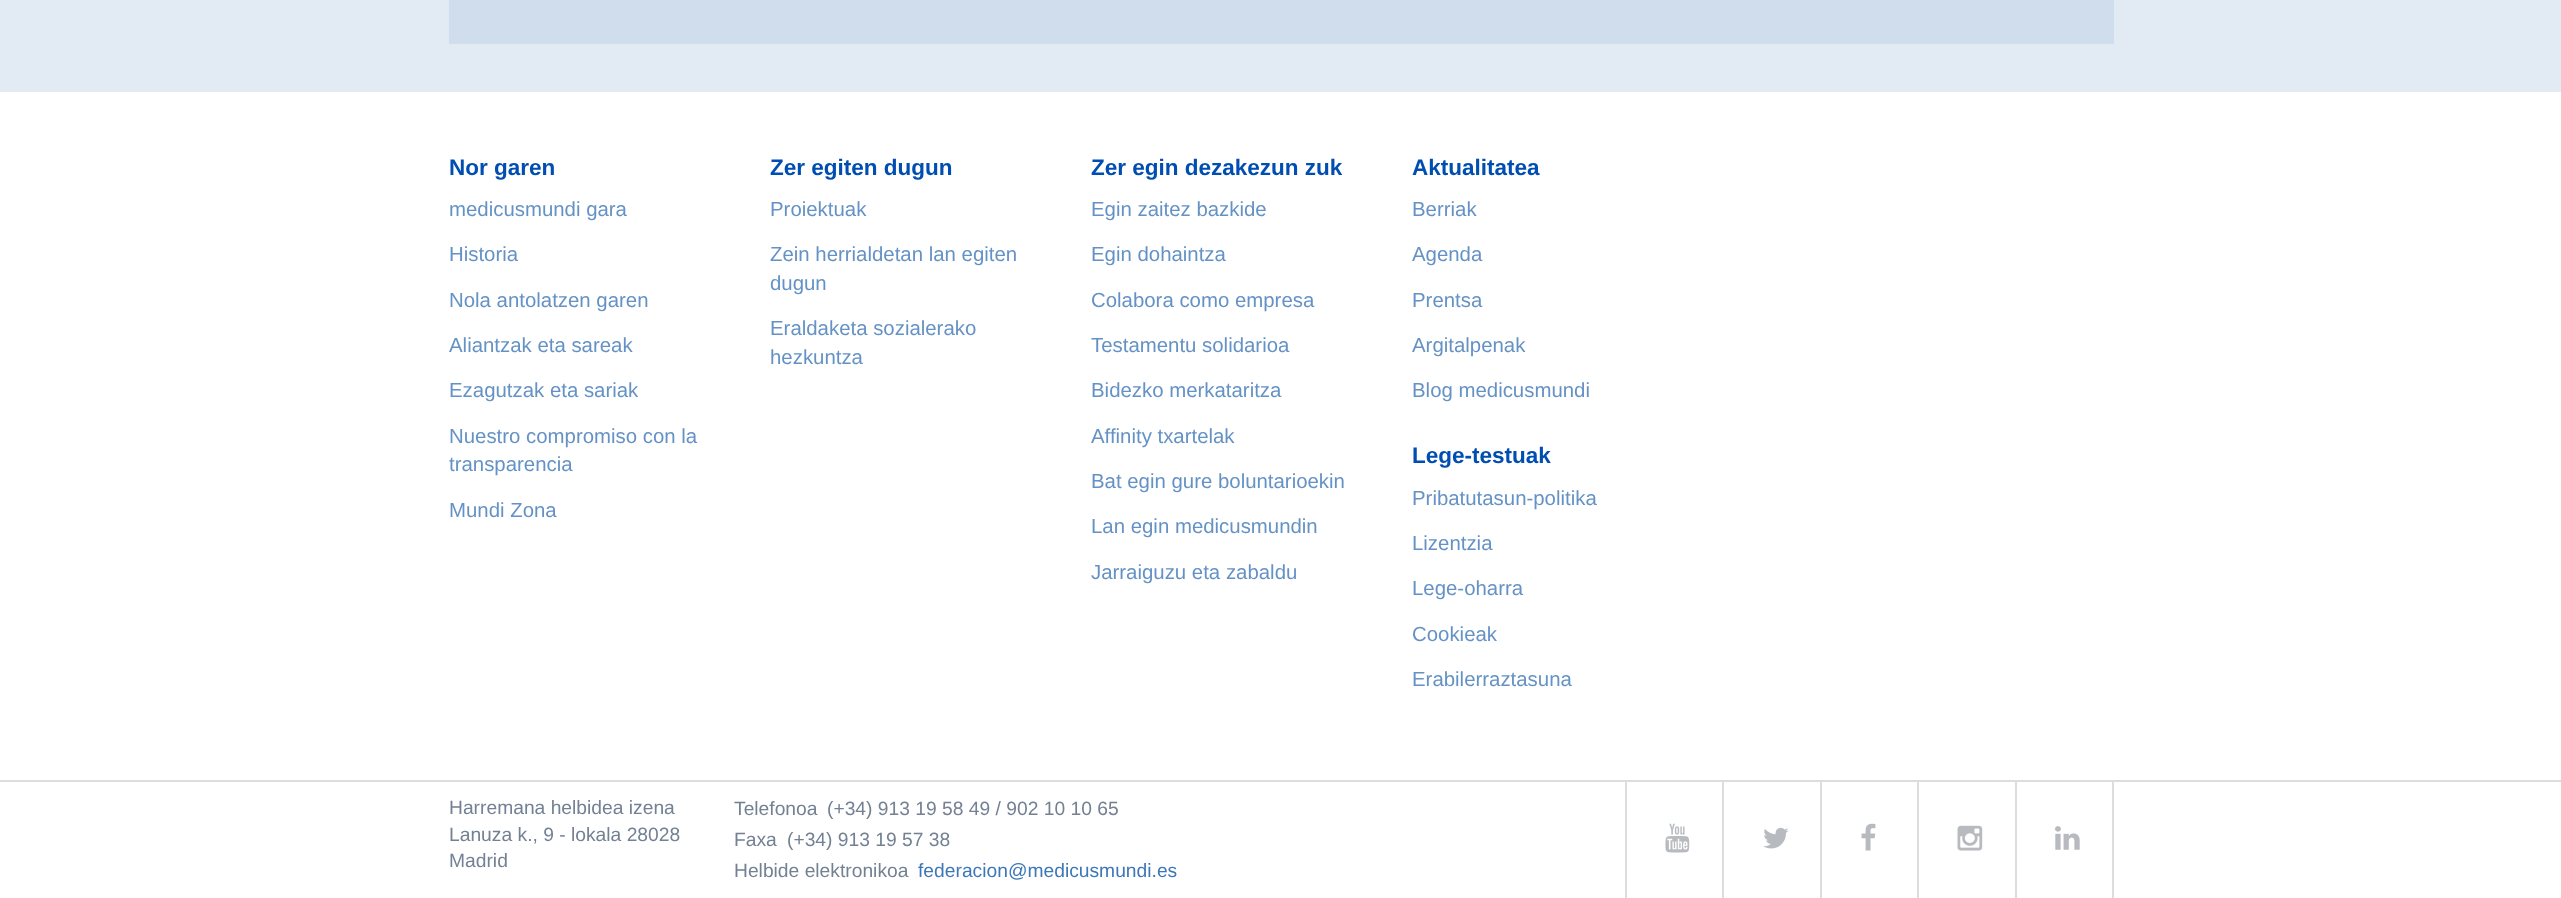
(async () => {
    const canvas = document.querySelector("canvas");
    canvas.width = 2561;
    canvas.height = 898;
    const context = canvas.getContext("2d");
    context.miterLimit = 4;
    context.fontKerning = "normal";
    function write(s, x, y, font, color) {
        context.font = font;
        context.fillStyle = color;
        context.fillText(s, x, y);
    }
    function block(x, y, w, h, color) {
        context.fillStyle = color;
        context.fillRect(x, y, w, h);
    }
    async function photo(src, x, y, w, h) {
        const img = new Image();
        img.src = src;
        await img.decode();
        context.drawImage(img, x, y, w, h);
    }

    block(0, 0, 2561, 898, "rgb(226, 235, 244)");
    block(449, 0, 1665, 44, "rgb(207, 221, 237)");
    block(0, 92, 2561, 806, "rgb(255, 255, 255)");
    write("Nor garen", 449, 175, "bold 22.5px Liberation Sans", "rgb(0, 78, 178)");
    write("medicusmundi gara", 449, 216, "20.4px Liberation Sans", "rgb(101, 146, 197)");
    write("Historia", 449, 261, "20.4px Liberation Sans", "rgb(101, 146, 197)");
    write("Nola antolatzen garen", 449, 307, "20.4px Liberation Sans", "rgb(101, 146, 197)");
    write("Aliantzak eta sareak", 449, 352, "20.4px Liberation Sans", "rgb(101, 146, 197)");
    write("Ezagutzak eta sariak", 449, 397, "20.4px Liberation Sans", "rgb(101, 146, 197)");
    write("Nuestro compromiso con la", 449, 443, "20.4px Liberation Sans", "rgb(101, 146, 197)");
    write("transparencia", 449, 471, "20.4px Liberation Sans", "rgb(101, 146, 197)");
    write("Mundi Zona", 449, 517, "20.4px Liberation Sans", "rgb(101, 146, 197)");
    write("Zer egiten dugun", 770, 175, "bold 22.5px Liberation Sans", "rgb(0, 78, 178)");
    write("Proiektuak", 770, 216, "20.4px Liberation Sans", "rgb(101, 146, 197)");
    write("Zein herrialdetan lan egiten", 770, 261, "20.4px Liberation Sans", "rgb(101, 146, 197)");
    write("dugun", 770, 290, "20.4px Liberation Sans", "rgb(101, 146, 197)");
    write("Eraldaketa sozialerako", 770, 335, "20.4px Liberation Sans", "rgb(101, 146, 197)");
    write("hezkuntza", 770, 364, "20.4px Liberation Sans", "rgb(101, 146, 197)");
    write("Zer egin dezakezun zuk", 1091, 175, "bold 22.5px Liberation Sans", "rgb(0, 78, 178)");
    write("Egin zaitez bazkide", 1091, 216, "20.4px Liberation Sans", "rgb(101, 146, 197)");
    write("Egin dohaintza", 1091, 261, "20.4px Liberation Sans", "rgb(101, 146, 197)");
    write("Colabora como empresa", 1091, 307, "20.4px Liberation Sans", "rgb(101, 146, 197)");
    write("Testamentu solidarioa", 1091, 352, "20.4px Liberation Sans", "rgb(101, 146, 197)");
    write("Bidezko merkataritza", 1091, 397, "20.4px Liberation Sans", "rgb(101, 146, 197)");
    write("Affinity txartelak", 1091, 443, "20.4px Liberation Sans", "rgb(101, 146, 197)");
    write("Bat egin gure boluntarioekin", 1091, 488, "20.4px Liberation Sans", "rgb(101, 146, 197)");
    write("Lan egin medicusmundin", 1091, 533, "20.4px Liberation Sans", "rgb(101, 146, 197)");
    write("Jarraiguzu eta zabaldu", 1091, 579, "20.4px Liberation Sans", "rgb(101, 146, 197)");
    write("Aktualitatea", 1412, 175, "bold 22.5px Liberation Sans", "rgb(0, 78, 178)");
    write("Berriak", 1412, 216, "20.4px Liberation Sans", "rgb(101, 146, 197)");
    write("Agenda", 1412, 261, "20.4px Liberation Sans", "rgb(101, 146, 197)");
    write("Prentsa", 1412, 307, "20.4px Liberation Sans", "rgb(101, 146, 197)");
    write("Argitalpenak", 1412, 352, "20.4px Liberation Sans", "rgb(101, 146, 197)");
    write("Blog medicusmundi", 1412, 397, "20.4px Liberation Sans", "rgb(101, 146, 197)");
    write("Lege-testuak", 1412, 463, "bold 22.5px Liberation Sans", "rgb(0, 78, 178)");
    write("Pribatutasun-politika", 1412, 505, "20.4px Liberation Sans", "rgb(101, 146, 197)");
    write("Lizentzia", 1412, 550, "20.4px Liberation Sans", "rgb(101, 146, 197)");
    write("Lege-oharra", 1412, 595, "20.4px Liberation Sans", "rgb(101, 146, 197)");
    write("Cookieak", 1412, 641, "20.4px Liberation Sans", "rgb(101, 146, 197)");
    write("Erabilerraztasuna", 1412, 686, "20.4px Liberation Sans", "rgb(101, 146, 197)");
    block(0, 780, 2561, 2, "rgb(219, 221, 223)");
    write("Harremana helbidea izena", 449, 814, "19.25px Liberation Sans", "rgb(115, 129, 147)");
    write("Lanuza k., 9 - lokala 28028", 449, 841, "19.25px Liberation Sans", "rgb(115, 129, 147)");
    write("Madrid", 449, 867, "19.25px Liberation Sans", "rgb(115, 129, 147)");
    write("Telefonoa", 734, 815, "19.25px Liberation Sans", "rgb(115, 129, 147)");
    write("(+34) 913 19 58 49 / 902 10 10 65", 827, 815, "19.25px Liberation Sans", "rgb(115, 129, 147)");
    write("Faxa", 734, 846, "19.25px Liberation Sans", "rgb(115, 129, 147)");
    write("(+34) 913 19 57 38", 787, 846, "19.25px Liberation Sans", "rgb(115, 129, 147)");
    write("Helbide elektronikoa", 734, 877, "19.25px Liberation Sans", "rgb(115, 129, 147)");
    write("federacion@medicusmundi.es", 918, 877, "19.25px Liberation Sans", "rgb(62, 119, 183)");
    block(1722, 782, 2, 116, "rgb(219, 221, 223)");
    block(1625, 782, 2, 116, "rgb(219, 221, 223)");
    await photo("media/1.png", 1665, 823, 25, 30);
    block(1820, 782, 2, 116, "rgb(219, 221, 223)");
    await photo("media/2.png", 1763, 827, 26, 22);
    block(1917, 782, 2, 116, "rgb(219, 221, 223)");
    await photo("media/3.png", 1861, 823, 15, 28);
    block(2015, 782, 2, 116, "rgb(219, 221, 223)");
    await photo("media/4.png", 1957, 825, 26, 26);
    block(2112, 782, 2, 116, "rgb(219, 221, 223)");
    await photo("media/5.png", 2055, 826, 25, 24);
})();
